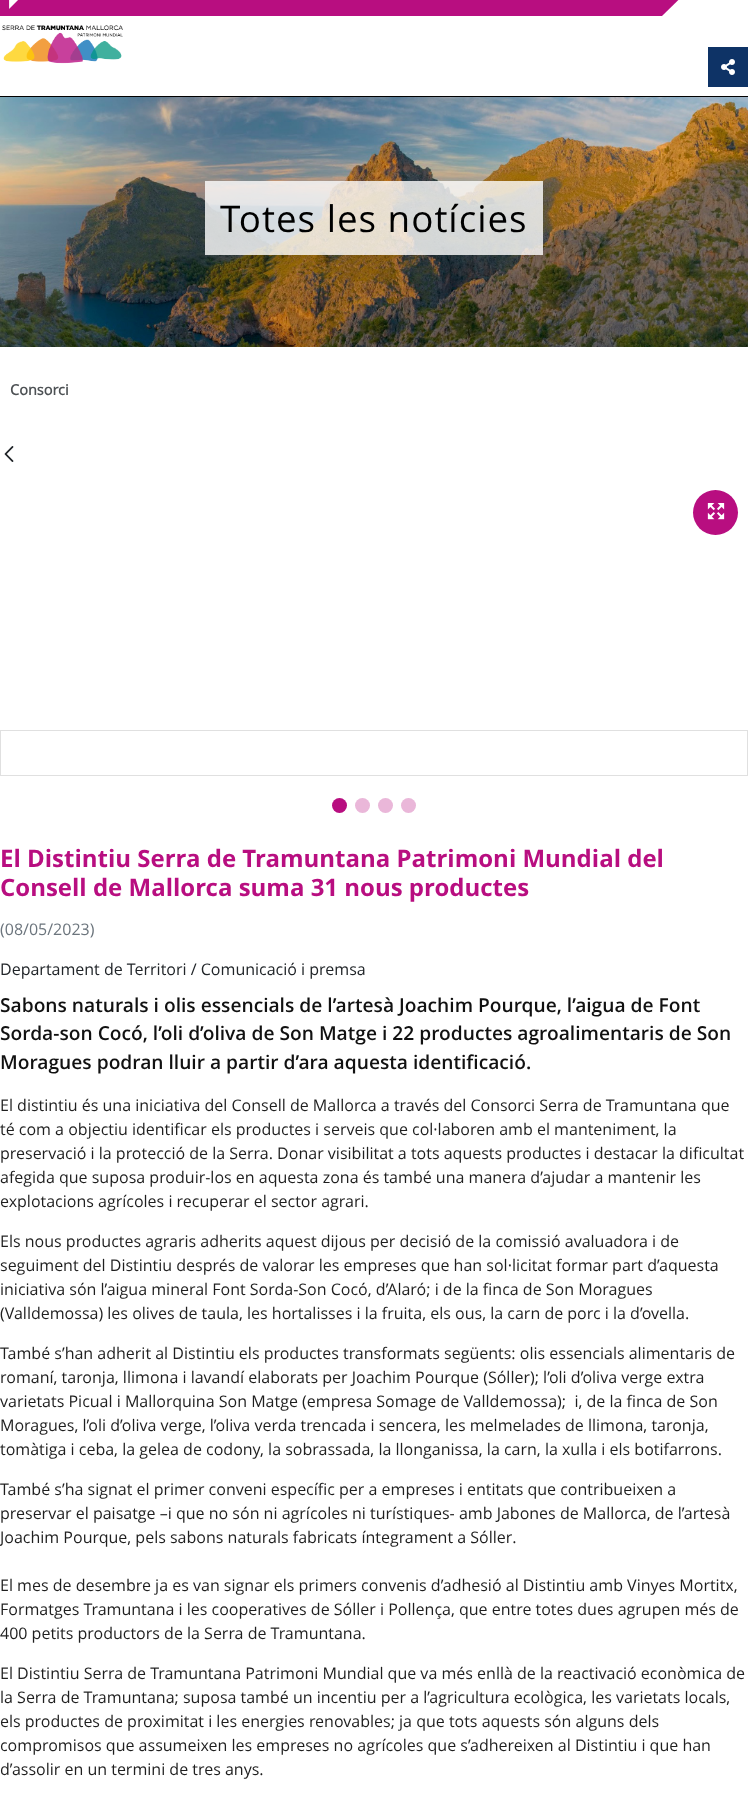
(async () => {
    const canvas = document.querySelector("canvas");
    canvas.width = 748;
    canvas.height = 1796;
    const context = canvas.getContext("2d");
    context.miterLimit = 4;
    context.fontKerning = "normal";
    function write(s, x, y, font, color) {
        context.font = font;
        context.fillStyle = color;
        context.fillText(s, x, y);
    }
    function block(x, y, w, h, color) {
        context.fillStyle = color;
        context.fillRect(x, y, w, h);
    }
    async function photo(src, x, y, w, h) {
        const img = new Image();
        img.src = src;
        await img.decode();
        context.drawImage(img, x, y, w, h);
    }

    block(0, 0, 748, 1796, "rgb(255, 255, 255)");
    block(0, 0, 679, 16, "rgb(184, 14, 128)");
    await photo("media/1.png", 9, 0, 9, 9);
    context.fillStyle = "rgb(255, 255, 255)";
    context.beginPath();
    context.moveTo(708, -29);
    context.lineTo(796, -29);
    context.lineTo(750, 16);
    context.lineTo(662, 16);
    context.closePath();
    context.fill();
    block(0, 96, 748, 1, "rgb(0, 0, 0)");
    await photo("media/2.png", 2, 25, 121, 39);
    block(708, 47, 40, 40, "rgb(14, 51, 102)");
    await photo("media/3.png", 721, 59, 14, 16);
    await photo("media/4.png", 0, 97, 748, 250);
    block(205, 181, 338, 74, "rgba(255, 255, 255, 0.8)");
    context.letterSpacing = "1px";
    write("Totes les notícies", 220, 232, "36.75px Open Sans", "rgb(0, 0, 0)");
    context.letterSpacing = "0px";
    write("Consorci", 10, 395, "bold 14.5px Open Sans", "rgb(77, 81, 84)");
    await photo("media/5.png", 4, 446, 10, 16);
    context.fillStyle = "rgb(184, 14, 128)";
    context.beginPath();
    context.arc(715.5, 512.5, 22.5, 0, Math.PI * 2);
    context.fill();
    await photo("media/6.png", 707, 503, 18, 17);
    context.strokeStyle = "rgb(224, 224, 224)";
    context.strokeRect(0.5, 730.5, 747, 45);
    context.beginPath();
    context.arc(339.5, 805.5, 7.5, 0, Math.PI * 2);
    context.fill();
    context.fillStyle = "rgb(234, 183, 217)";
    context.beginPath();
    context.arc(362.5, 805.5, 7.5, 0, Math.PI * 2);
    context.fill();
    context.beginPath();
    context.arc(385.5, 805.5, 7.5, 0, Math.PI * 2);
    context.fill();
    context.beginPath();
    context.arc(408.5, 805.5, 7.5, 0, Math.PI * 2);
    context.fill();
    write("El Distintiu Serra de Tramuntana Patrimoni Mundial del", 0, 867, "bold 24px 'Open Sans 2'", "rgb(184, 14, 128)");
    write("Consell de Mallorca suma 31 nous productes", 0, 896, "bold 24px 'Open Sans 2'", "rgb(184, 14, 128)");
    write("(08/05/2023)", 0, 935, "16px Open Sans", "rgb(108, 117, 125)");
    write("Departament de Territori / Comunicació i premsa", 0, 975, "16px Open Sans", "rgb(33, 37, 41)");
    write("Sabons naturals i olis essencials de l’artesà Joachim Pourque, l’aigua de Font", 0, 1012, "600 19.2px Open Sans", "rgb(17, 17, 17)");
    write("Sorda-son Cocó, l’oli d’oliva de Son Matge i 22 productes agroalimentaris de Son", 0, 1040, "600 19.2px Open Sans", "rgb(17, 17, 17)");
    write("Moragues podran lluir a partir d’ara aquesta identificació.", 0, 1069, "600 19.2px Open Sans", "rgb(17, 17, 17)");
    write("El distintiu és una iniciativa del Consell de Mallorca a través del Consorci Serra de Tramuntana que", 0, 1111, "16px Open Sans", "rgb(31, 31, 31)");
    write("té com a objectiu identificar els productes i serveis que col·laboren amb el manteniment, la", 0, 1135, "16px Open Sans", "rgb(31, 31, 31)");
    write("preservació i la protecció de la Serra. Donar visibilitat a tots aquests productes i destacar la dificultat", 0, 1159, "16px Open Sans", "rgb(31, 31, 31)");
    write("afegida que suposa produir-los en aquesta zona és també una manera d’ajudar a mantenir les", 0, 1183, "16px Open Sans", "rgb(31, 31, 31)");
    write("explotacions agrícoles i recuperar el sector agrari.", 0, 1207, "16px Open Sans", "rgb(31, 31, 31)");
    write("Els nous productes agraris adherits aquest dijous per decisió de la comissió avaluadora i de", 0, 1247, "16px Open Sans", "rgb(31, 31, 31)");
    write("seguiment del Distintiu després de valorar les empreses que han sol·licitat formar part d’aquesta", 0, 1271, "16px Open Sans", "rgb(31, 31, 31)");
    write("iniciativa són l’aigua mineral Font Sorda-Son Cocó, d’Alaró; i de la finca de Son Moragues", 0, 1295, "16px Open Sans", "rgb(31, 31, 31)");
    write("(Valldemossa) les olives de taula, les hortalisses i la fruita, els ous, la carn de porc i la d’ovella.", 0, 1319, "16px Open Sans", "rgb(31, 31, 31)");
    write("També s’han adherit al Distintiu els productes transformats següents: olis essencials alimentaris de", 0, 1359, "16px Open Sans", "rgb(31, 31, 31)");
    write("romaní, taronja, llimona i lavandí elaborats per Joachim Pourque (Sóller); l’oli d’oliva verge extra", 0, 1383, "16px Open Sans", "rgb(31, 31, 31)");
    write("varietats Picual i Mallorquina Son Matge (empresa Somage de Valldemossa);  i, de la finca de Son", 0, 1407, "16px Open Sans", "rgb(31, 31, 31)");
    write("Moragues, l’oli d’oliva verge, l’oliva verda trencada i sencera, les melmelades de llimona, taronja,", 0, 1431, "16px Open Sans", "rgb(31, 31, 31)");
    write("tomàtiga i ceba, la gelea de codony, la sobrassada, la llonganissa, la carn, la xulla i els botifarrons.", 0, 1455, "16px Open Sans", "rgb(31, 31, 31)");
    write("També s’ha signat el primer conveni específic per a empreses i entitats que contribueixen a", 0, 1495, "16px Open Sans", "rgb(31, 31, 31)");
    write("preservar el paisatge –i que no són ni agrícoles ni turístiques- amb Jabones de Mallorca, de l’artesà", 0, 1519, "16px Open Sans", "rgb(31, 31, 31)");
    write("Joachim Pourque, pels sabons naturals fabricats íntegrament a Sóller.", 0, 1543, "16px Open Sans", "rgb(31, 31, 31)");
    write("El mes de desembre ja es van signar els primers convenis d’adhesió al Distintiu amb Vinyes Mortitx,", 0, 1591, "16px Open Sans", "rgb(31, 31, 31)");
    write("Formatges Tramuntana i les cooperatives de Sóller i Pollença, que entre totes dues agrupen més de", 0, 1615, "16px Open Sans", "rgb(31, 31, 31)");
    write("400 petits productors de la Serra de Tramuntana.", 0, 1639, "16px Open Sans", "rgb(31, 31, 31)");
    write("El Distintiu Serra de Tramuntana Patrimoni Mundial que va més enllà de la reactivació econòmica de", 0, 1679, "16px Open Sans", "rgb(31, 31, 31)");
    write("la Serra de Tramuntana; suposa també un incentiu per a l’agricultura ecològica, les varietats locals,", 0, 1703, "16px Open Sans", "rgb(31, 31, 31)");
    write("els productes de proximitat i les energies renovables; ja que tots aquests són alguns dels", 0, 1727, "16px Open Sans", "rgb(31, 31, 31)");
    write("compromisos que assumeixen les empreses no agrícoles que s’adhereixen al Distintiu i que han", 0, 1751, "16px Open Sans", "rgb(31, 31, 31)");
    write("d’assolir en un termini de tres anys.", 0, 1775, "16px Open Sans", "rgb(31, 31, 31)");
})();
